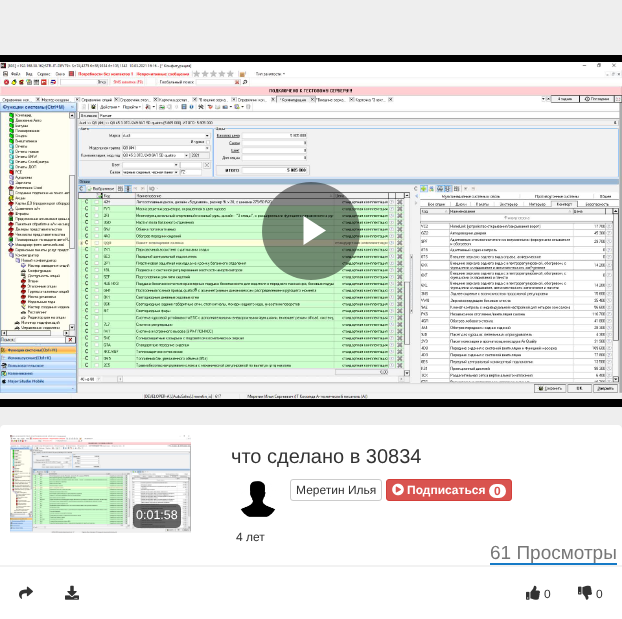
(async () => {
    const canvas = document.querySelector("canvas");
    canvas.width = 622;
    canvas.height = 619;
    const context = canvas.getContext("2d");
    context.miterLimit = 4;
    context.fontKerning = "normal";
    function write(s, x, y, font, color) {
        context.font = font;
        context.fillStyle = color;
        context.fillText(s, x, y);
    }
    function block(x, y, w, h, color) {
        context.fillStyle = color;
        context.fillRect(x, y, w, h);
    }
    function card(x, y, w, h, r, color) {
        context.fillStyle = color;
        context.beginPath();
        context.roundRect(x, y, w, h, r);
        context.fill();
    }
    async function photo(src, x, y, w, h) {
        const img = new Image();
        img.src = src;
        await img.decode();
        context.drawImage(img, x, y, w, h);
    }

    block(0, 0, 622, 619, "rgb(238, 238, 238)");
    block(0, 55, 622, 352, "rgb(0, 0, 0)");
    await photo("media/1.png", 0, 62, 622, 337);
    context.fillStyle = "rgba(0, 0, 0, 0.45)";
    context.beginPath();
    context.arc(311, 231, 49, 0, Math.PI * 2);
    context.fill();
    context.fillStyle = "rgb(255, 255, 255)";
    context.beginPath();
    context.moveTo(303.5, 216);
    context.lineTo(303.5, 245);
    context.lineTo(326, 230.5);
    context.closePath();
    context.fill();
    context.beginPath();
    context.moveTo(4, 425);
    context.lineTo(618, 425);
    context.bezierCurveTo(620, 425, 622, 427, 622, 429);
    context.lineTo(622, 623);
    context.lineTo(0, 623);
    context.lineTo(0, 429);
    context.bezierCurveTo(0, 427, 2, 425, 4, 425);
    context.closePath();
    context.fill();
    await photo("media/2.png", 10, 435, 181, 98);
    card(133, 504, 48, 24, 5, "rgba(0, 0, 0, 0.6)");
    write("0:01:58", 136, 519, "12.5px Liberation Sans", "rgb(255, 255, 255)");
    write("что сделано в 30834", 231, 463, "20px Liberation Sans", "rgb(51, 51, 51)");
    await photo("media/3.png", 240, 481, 36, 36);
    context.beginPath();
    context.roundRect(290.5, 479.5, 91, 21, 2.5);
    context.strokeStyle = "rgb(204, 204, 204)";
    context.stroke();
    write("Меретин Илья", 296, 494, "12px Liberation Sans", "rgb(51, 51, 51)");
    context.fillStyle = "rgb(217, 83, 79)";
    context.beginPath();
    context.roundRect(386.5, 479.5, 125, 21, 2.5);
    context.fill();
    context.strokeStyle = "rgb(212, 63, 58)";
    context.stroke();
    await photo("media/4.png", 392, 483, 12, 13);
    write("Подписаться", 407, 494, "bold 12px Liberation Sans", "rgb(255, 255, 255)");
    card(489, 484, 17, 14, 7, "rgb(255, 255, 255)");
    write("0", 494, 495, "bold 12px Liberation Sans", "rgb(217, 83, 79)");
    write("4 лет", 236, 541, "12px Liberation Sans", "rgb(51, 51, 51)");
    block(490, 563, 127, 2, "rgb(22, 122, 198)");
    write("61 Просмотры", 490, 559, "19px Liberation Sans", "rgb(119, 119, 119)");
    block(0, 565, 622, 2, "rgb(242, 242, 242)");
    await photo("media/5.png", 19, 586, 14, 13);
    await photo("media/6.png", 65, 585, 14, 15);
    await photo("media/7.png", 526, 585, 14, 15);
    write("0", 544, 598, "12px Liberation Sans", "rgb(51, 51, 51)");
    await photo("media/8.png", 578, 585, 14, 15);
    write("0", 596, 598, "12px Liberation Sans", "rgb(51, 51, 51)");
})();
